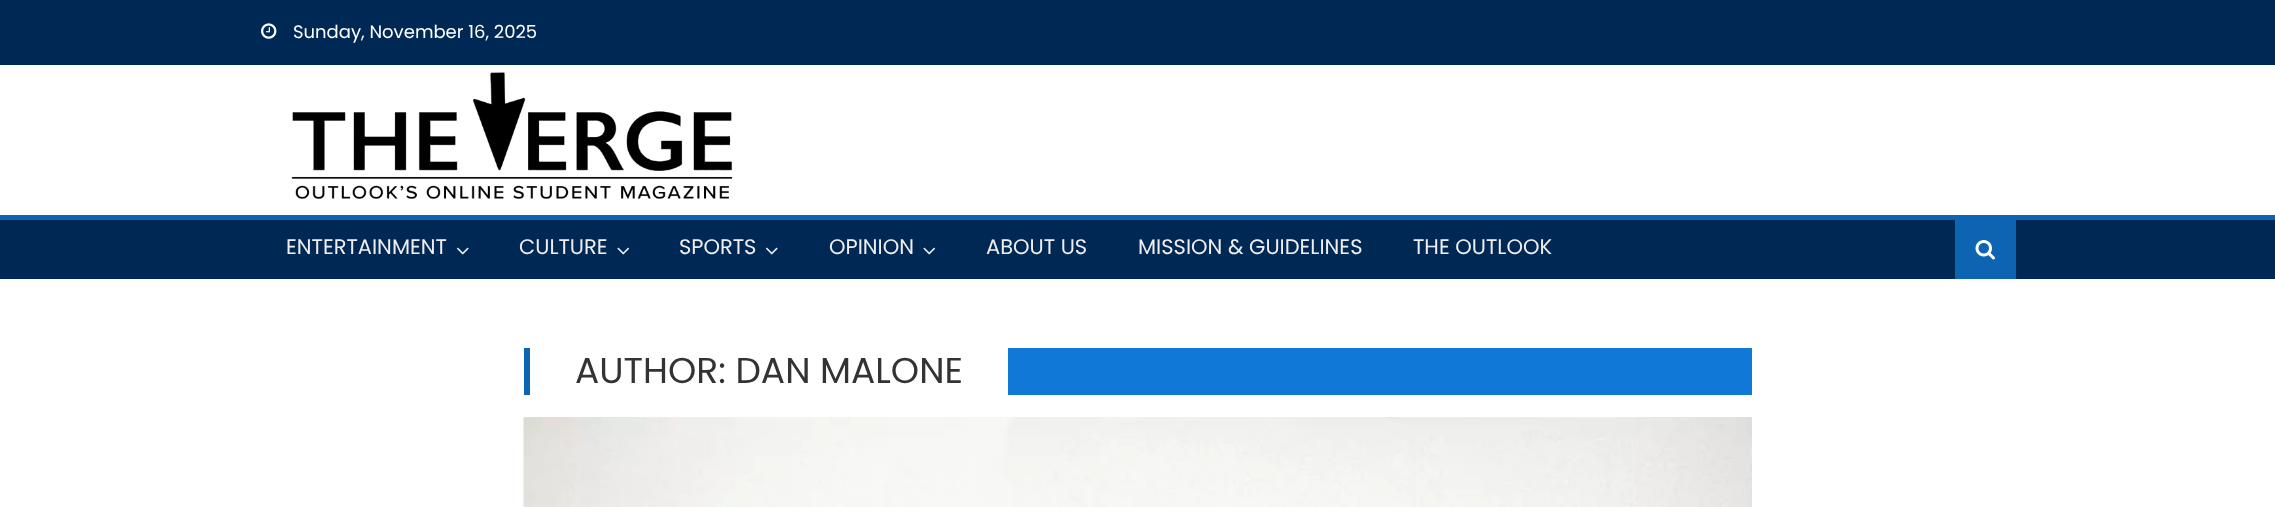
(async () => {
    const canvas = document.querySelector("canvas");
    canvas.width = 2275;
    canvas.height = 507;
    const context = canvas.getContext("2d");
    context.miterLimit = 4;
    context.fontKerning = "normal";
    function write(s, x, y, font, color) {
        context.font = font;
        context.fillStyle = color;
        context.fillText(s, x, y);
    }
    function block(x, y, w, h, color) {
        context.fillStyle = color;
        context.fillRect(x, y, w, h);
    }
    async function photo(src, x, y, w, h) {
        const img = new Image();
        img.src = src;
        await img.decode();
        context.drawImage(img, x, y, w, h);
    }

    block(0, 0, 2275, 507, "rgb(255, 255, 255)");
    block(0, 0, 2275, 65, "rgb(0, 40, 85)");
    await photo("media/1.png", 261, 23, 16, 16);
    write("Sunday, November 16, 2025", 293, 38, "18px Poppins", "rgb(255, 255, 255)");
    await photo("media/2.png", 291, 72, 442, 127);
    block(0, 220, 2275, 59, "rgb(0, 40, 85)");
    block(0, 215, 2275, 5, "rgb(13, 100, 178)");
    write("ENTERTAINMENT", 286, 254, "21px Poppins", "rgb(238, 238, 238)");
    await photo("media/3.png", 456, 247, 13, 8);
    write("CULTURE", 519, 254, "21px Poppins", "rgb(238, 238, 238)");
    await photo("media/4.png", 617, 247, 13, 8);
    write("SPORTS", 679, 254, "21px Poppins", "rgb(238, 238, 238)");
    await photo("media/3.png", 765, 247, 13, 8);
    write("OPINION", 829, 254, "21px Poppins", "rgb(238, 238, 238)");
    await photo("media/4.png", 923, 247, 13, 8);
    write("ABOUT US", 986, 254, "21px Poppins", "rgb(238, 238, 238)");
    write("MISSION & GUIDELINES", 1138, 254, "21px Poppins", "rgb(238, 238, 238)");
    write("THE OUTLOOK", 1413, 254, "21px Poppins", "rgb(238, 238, 238)");
    block(1955, 220, 61, 59, "rgb(13, 100, 178)");
    await photo("media/5.png", 1975, 240, 20, 20);
    block(1008, 348, 744, 47, "rgb(16, 120, 214)");
    block(524, 348, 6, 47, "rgb(13, 100, 178)");
    write("AUTHOR: DAN MALONE", 575, 383, "36px Poppins", "rgb(51, 51, 51)");
    await photo("media/6.png", 523, 417, 1229, 90);
})();
